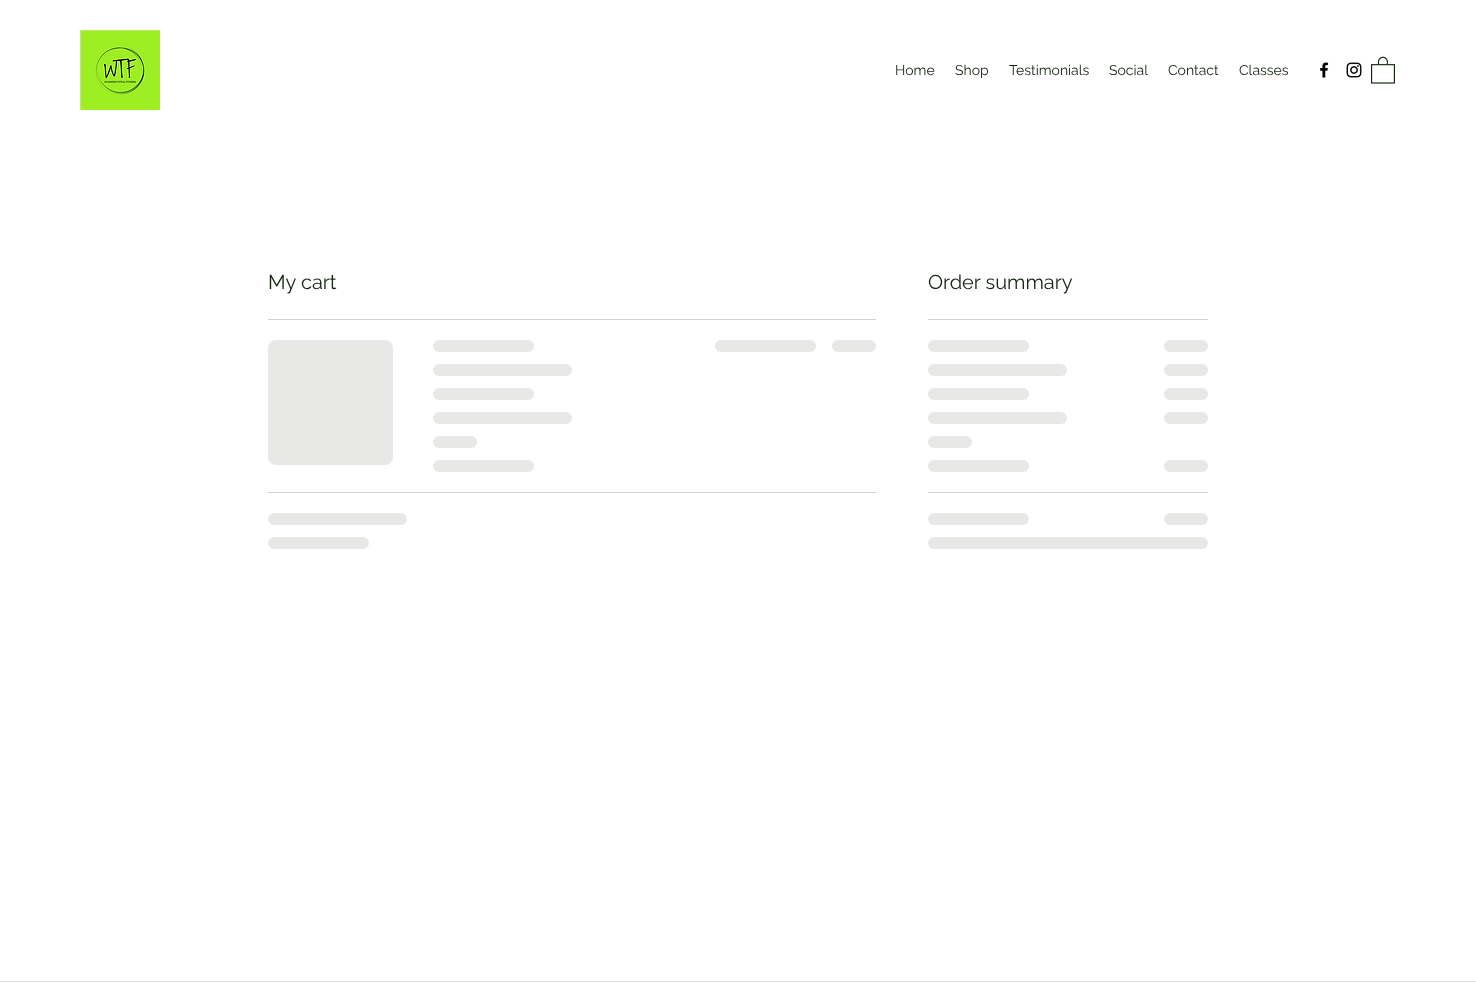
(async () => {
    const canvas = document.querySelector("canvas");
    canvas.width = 1476;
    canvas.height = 1005;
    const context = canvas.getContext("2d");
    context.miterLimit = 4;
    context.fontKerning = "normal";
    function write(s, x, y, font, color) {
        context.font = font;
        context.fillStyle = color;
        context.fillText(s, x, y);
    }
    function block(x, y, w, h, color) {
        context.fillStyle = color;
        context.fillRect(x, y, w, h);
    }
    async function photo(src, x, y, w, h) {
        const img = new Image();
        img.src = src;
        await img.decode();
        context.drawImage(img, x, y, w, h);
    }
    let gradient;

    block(0, 0, 1476, 1005, "rgb(255, 255, 255)");
    await photo("media/1.png", 80, 30, 80, 80);
    write("Home", 895, 75, "14px Raleway", "rgb(22, 38, 19)");
    write("Shop", 955, 75, "14px Raleway", "rgb(22, 38, 19)");
    write("Testimonials", 1009, 75, "14px Raleway", "rgb(22, 38, 19)");
    write("Social", 1109, 75, "14px Raleway", "rgb(22, 38, 19)");
    write("Contact", 1168, 75, "14px Raleway", "rgb(22, 38, 19)");
    write("Classes", 1239, 75, "14px Raleway", "rgb(22, 38, 19)");
    await photo("media/2.png", 1320, 62, 9, 16);
    await photo("media/3.png", 1346, 62, 16, 16);
    await photo("media/4.png", 1371, 56, 24, 28);
    block(268, 319, 608, 1, "rgb(208, 212, 208)");
    write("My cart", 268, 289, "20px Raleway", "rgb(22, 38, 19)");
    gradient = context.createLinearGradient(268, 403, 768, 403);
    gradient.addColorStop(0.25, "rgb(232, 233, 231)");
    gradient.addColorStop(0.37, "rgb(208, 212, 208)");
    gradient.addColorStop(0.63, "rgb(232, 233, 231)");
    context.fillStyle = gradient;
    context.beginPath();
    context.roundRect(268, 340, 125, 125, 8);
    context.fill();
    gradient = context.createLinearGradient(433, 346, 837, 346);
    gradient.addColorStop(0.25, "rgb(232, 233, 231)");
    gradient.addColorStop(0.37, "rgb(208, 212, 208)");
    gradient.addColorStop(0.63, "rgb(232, 233, 231)");
    context.fillStyle = gradient;
    context.beginPath();
    context.roundRect(433, 340, 101, 12, 6);
    context.fill();
    gradient = context.createLinearGradient(433, 370, 989, 370);
    gradient.addColorStop(0.25, "rgb(232, 233, 231)");
    gradient.addColorStop(0.37, "rgb(208, 212, 208)");
    gradient.addColorStop(0.63, "rgb(232, 233, 231)");
    context.fillStyle = gradient;
    context.beginPath();
    context.roundRect(433, 364, 139, 12, 6);
    context.fill();
    gradient = context.createLinearGradient(433, 394, 837, 394);
    gradient.addColorStop(0.25, "rgb(232, 233, 231)");
    gradient.addColorStop(0.37, "rgb(208, 212, 208)");
    gradient.addColorStop(0.63, "rgb(232, 233, 231)");
    context.fillStyle = gradient;
    context.beginPath();
    context.roundRect(433, 388, 101, 12, 6);
    context.fill();
    gradient = context.createLinearGradient(433, 418, 989, 418);
    gradient.addColorStop(0.25, "rgb(232, 233, 231)");
    gradient.addColorStop(0.37, "rgb(208, 212, 208)");
    gradient.addColorStop(0.63, "rgb(232, 233, 231)");
    context.fillStyle = gradient;
    context.beginPath();
    context.roundRect(433, 412, 139, 12, 6);
    context.fill();
    gradient = context.createLinearGradient(433, 442, 609, 442);
    gradient.addColorStop(0.25, "rgb(232, 233, 231)");
    gradient.addColorStop(0.37, "rgb(208, 212, 208)");
    gradient.addColorStop(0.63, "rgb(232, 233, 231)");
    context.fillStyle = gradient;
    context.beginPath();
    context.roundRect(433, 436, 44, 12, 6);
    context.fill();
    gradient = context.createLinearGradient(433, 466, 837, 466);
    gradient.addColorStop(0.25, "rgb(232, 233, 231)");
    gradient.addColorStop(0.37, "rgb(208, 212, 208)");
    gradient.addColorStop(0.63, "rgb(232, 233, 231)");
    context.fillStyle = gradient;
    context.beginPath();
    context.roundRect(433, 460, 101, 12, 6);
    context.fill();
    gradient = context.createLinearGradient(715, 346, 1119, 346);
    gradient.addColorStop(0.25, "rgb(232, 233, 231)");
    gradient.addColorStop(0.37, "rgb(208, 212, 208)");
    gradient.addColorStop(0.63, "rgb(232, 233, 231)");
    context.fillStyle = gradient;
    context.beginPath();
    context.roundRect(715, 340, 101, 12, 6);
    context.fill();
    gradient = context.createLinearGradient(832, 346, 1008, 346);
    gradient.addColorStop(0.25, "rgb(232, 233, 231)");
    gradient.addColorStop(0.37, "rgb(208, 212, 208)");
    gradient.addColorStop(0.63, "rgb(232, 233, 231)");
    context.fillStyle = gradient;
    context.beginPath();
    context.roundRect(832, 340, 44, 12, 6);
    context.fill();
    block(268, 492, 608, 1, "rgb(208, 212, 208)");
    gradient = context.createLinearGradient(268, 519, 824, 519);
    gradient.addColorStop(0.25, "rgb(232, 233, 231)");
    gradient.addColorStop(0.37, "rgb(208, 212, 208)");
    gradient.addColorStop(0.63, "rgb(232, 233, 231)");
    context.fillStyle = gradient;
    context.beginPath();
    context.roundRect(268, 513, 139, 12, 6);
    context.fill();
    gradient = context.createLinearGradient(268, 543, 672, 543);
    gradient.addColorStop(0.25, "rgb(232, 233, 231)");
    gradient.addColorStop(0.37, "rgb(208, 212, 208)");
    gradient.addColorStop(0.63, "rgb(232, 233, 231)");
    context.fillStyle = gradient;
    context.beginPath();
    context.roundRect(268, 537, 101, 12, 6);
    context.fill();
    block(928, 319, 280, 1, "rgb(208, 212, 208)");
    write("Order summary", 928, 289, "20px Raleway", "rgb(22, 38, 19)");
    gradient = context.createLinearGradient(928, 346, 1332, 346);
    gradient.addColorStop(0.25, "rgb(232, 233, 231)");
    gradient.addColorStop(0.37, "rgb(208, 212, 208)");
    gradient.addColorStop(0.63, "rgb(232, 233, 231)");
    context.fillStyle = gradient;
    context.beginPath();
    context.roundRect(928, 340, 101, 12, 6);
    context.fill();
    gradient = context.createLinearGradient(1164, 346, 1340, 346);
    gradient.addColorStop(0.25, "rgb(232, 233, 231)");
    gradient.addColorStop(0.37, "rgb(208, 212, 208)");
    gradient.addColorStop(0.63, "rgb(232, 233, 231)");
    context.fillStyle = gradient;
    context.beginPath();
    context.roundRect(1164, 340, 44, 12, 6);
    context.fill();
    gradient = context.createLinearGradient(928, 370, 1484, 370);
    gradient.addColorStop(0.25, "rgb(232, 233, 231)");
    gradient.addColorStop(0.37, "rgb(208, 212, 208)");
    gradient.addColorStop(0.63, "rgb(232, 233, 231)");
    context.fillStyle = gradient;
    context.beginPath();
    context.roundRect(928, 364, 139, 12, 6);
    context.fill();
    gradient = context.createLinearGradient(1164, 370, 1340, 370);
    gradient.addColorStop(0.25, "rgb(232, 233, 231)");
    gradient.addColorStop(0.37, "rgb(208, 212, 208)");
    gradient.addColorStop(0.63, "rgb(232, 233, 231)");
    context.fillStyle = gradient;
    context.beginPath();
    context.roundRect(1164, 364, 44, 12, 6);
    context.fill();
    gradient = context.createLinearGradient(928, 394, 1332, 394);
    gradient.addColorStop(0.25, "rgb(232, 233, 231)");
    gradient.addColorStop(0.37, "rgb(208, 212, 208)");
    gradient.addColorStop(0.63, "rgb(232, 233, 231)");
    context.fillStyle = gradient;
    context.beginPath();
    context.roundRect(928, 388, 101, 12, 6);
    context.fill();
    gradient = context.createLinearGradient(1164, 394, 1340, 394);
    gradient.addColorStop(0.25, "rgb(232, 233, 231)");
    gradient.addColorStop(0.37, "rgb(208, 212, 208)");
    gradient.addColorStop(0.63, "rgb(232, 233, 231)");
    context.fillStyle = gradient;
    context.beginPath();
    context.roundRect(1164, 388, 44, 12, 6);
    context.fill();
    gradient = context.createLinearGradient(928, 418, 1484, 418);
    gradient.addColorStop(0.25, "rgb(232, 233, 231)");
    gradient.addColorStop(0.37, "rgb(208, 212, 208)");
    gradient.addColorStop(0.63, "rgb(232, 233, 231)");
    context.fillStyle = gradient;
    context.beginPath();
    context.roundRect(928, 412, 139, 12, 6);
    context.fill();
    gradient = context.createLinearGradient(1164, 418, 1340, 418);
    gradient.addColorStop(0.25, "rgb(232, 233, 231)");
    gradient.addColorStop(0.37, "rgb(208, 212, 208)");
    gradient.addColorStop(0.63, "rgb(232, 233, 231)");
    context.fillStyle = gradient;
    context.beginPath();
    context.roundRect(1164, 412, 44, 12, 6);
    context.fill();
    gradient = context.createLinearGradient(928, 442, 1104, 442);
    gradient.addColorStop(0.25, "rgb(232, 233, 231)");
    gradient.addColorStop(0.37, "rgb(208, 212, 208)");
    gradient.addColorStop(0.63, "rgb(232, 233, 231)");
    context.fillStyle = gradient;
    context.beginPath();
    context.roundRect(928, 436, 44, 12, 6);
    context.fill();
    gradient = context.createLinearGradient(928, 466, 1332, 466);
    gradient.addColorStop(0.25, "rgb(232, 233, 231)");
    gradient.addColorStop(0.37, "rgb(208, 212, 208)");
    gradient.addColorStop(0.63, "rgb(232, 233, 231)");
    context.fillStyle = gradient;
    context.beginPath();
    context.roundRect(928, 460, 101, 12, 6);
    context.fill();
    gradient = context.createLinearGradient(1164, 466, 1340, 466);
    gradient.addColorStop(0.25, "rgb(232, 233, 231)");
    gradient.addColorStop(0.37, "rgb(208, 212, 208)");
    gradient.addColorStop(0.63, "rgb(232, 233, 231)");
    context.fillStyle = gradient;
    context.beginPath();
    context.roundRect(1164, 460, 44, 12, 6);
    context.fill();
    block(928, 492, 280, 1, "rgb(208, 212, 208)");
    gradient = context.createLinearGradient(928, 519, 1332, 519);
    gradient.addColorStop(0.25, "rgb(232, 233, 231)");
    gradient.addColorStop(0.37, "rgb(208, 212, 208)");
    gradient.addColorStop(0.63, "rgb(232, 233, 231)");
    context.fillStyle = gradient;
    context.beginPath();
    context.roundRect(928, 513, 101, 12, 6);
    context.fill();
    gradient = context.createLinearGradient(1164, 519, 1340, 519);
    gradient.addColorStop(0.25, "rgb(232, 233, 231)");
    gradient.addColorStop(0.37, "rgb(208, 212, 208)");
    gradient.addColorStop(0.63, "rgb(232, 233, 231)");
    context.fillStyle = gradient;
    context.beginPath();
    context.roundRect(1164, 513, 44, 12, 6);
    context.fill();
    gradient = context.createLinearGradient(928, 543, 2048, 543);
    gradient.addColorStop(0.25, "rgb(232, 233, 231)");
    gradient.addColorStop(0.37, "rgb(208, 212, 208)");
    gradient.addColorStop(0.63, "rgb(232, 233, 231)");
    context.fillStyle = gradient;
    context.beginPath();
    context.roundRect(928, 537, 280, 12, 6);
    context.fill();
    block(0, 981, 1476, 1, "rgb(220, 222, 220)");
})();
